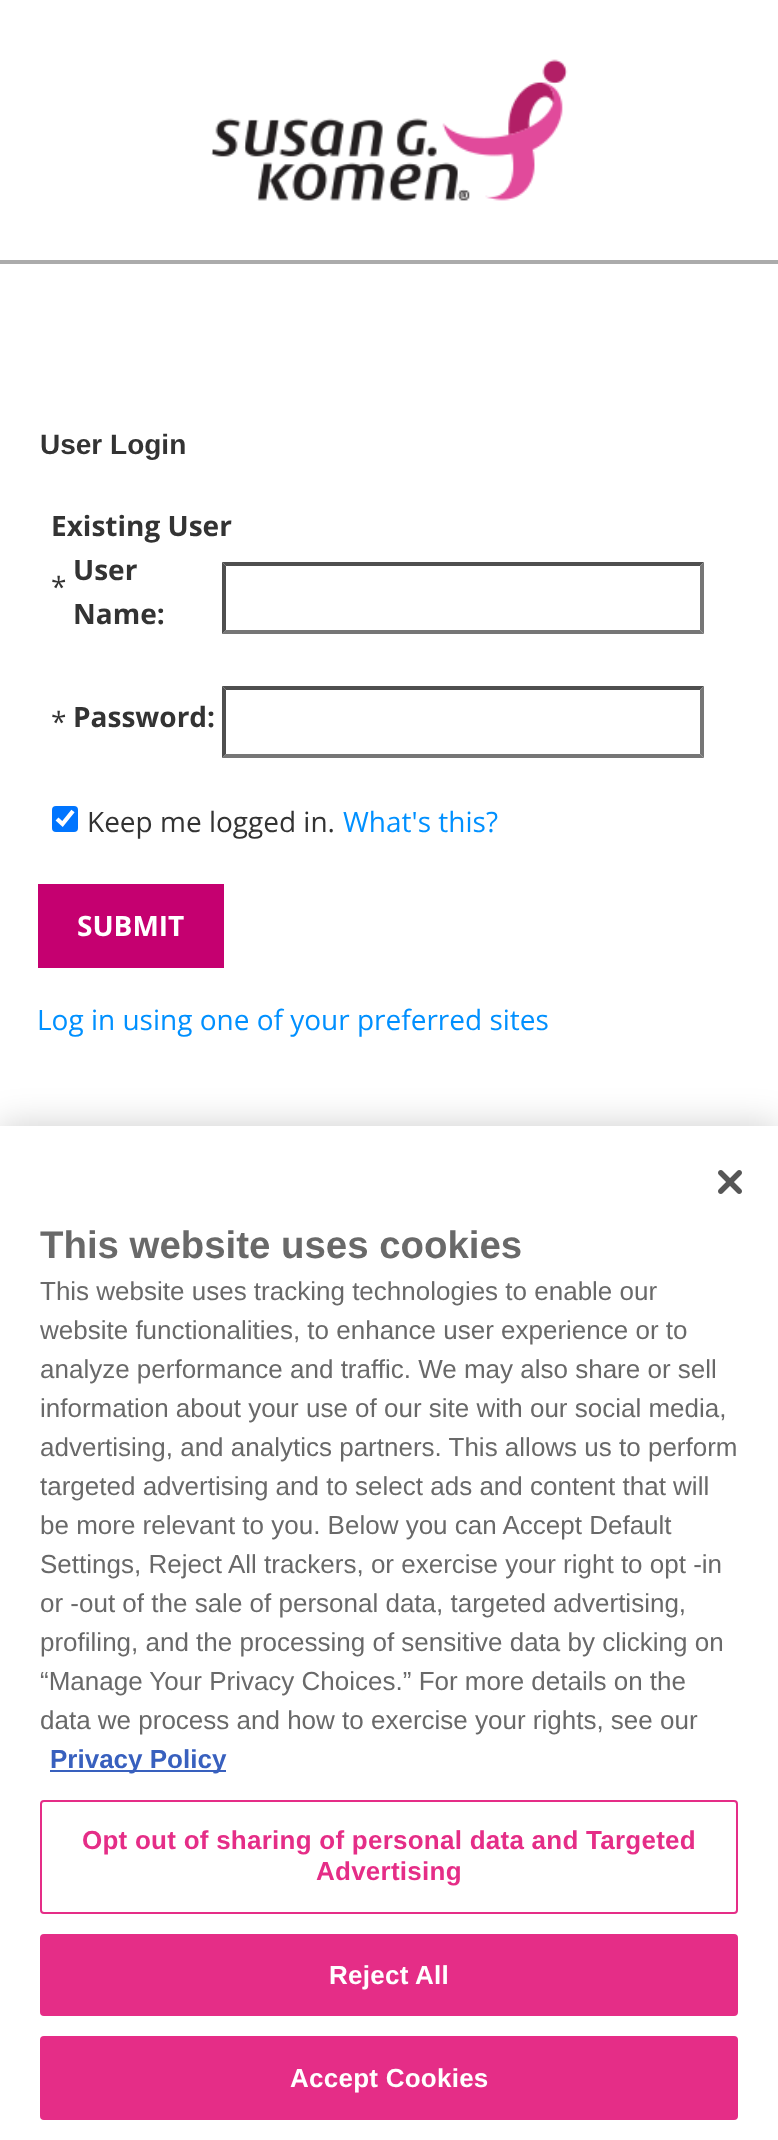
(async () => {
    const canvas = document.querySelector("canvas");
    canvas.width = 778;
    canvas.height = 2140;
    const context = canvas.getContext("2d");
    context.miterLimit = 4;
    context.fontKerning = "normal";
    function write(s, x, y, font, color) {
        context.font = font;
        context.fillStyle = color;
        context.fillText(s, x, y);
    }
    function block(x, y, w, h, color) {
        context.fillStyle = color;
        context.fillRect(x, y, w, h);
    }
    function card(x, y, w, h, r, color) {
        context.fillStyle = color;
        context.beginPath();
        context.roundRect(x, y, w, h, r);
        context.fill();
    }
    async function photo(src, x, y, w, h) {
        const img = new Image();
        img.src = src;
        await img.decode();
        context.drawImage(img, x, y, w, h);
    }

    block(0, 0, 778, 2140, "rgb(255, 255, 255)");
    block(0, 260, 778, 4, "rgb(171, 171, 171)");
    await photo("media/1.png", 211, 59, 357, 142);
    write("User Login", 40, 454, "bold 28px Liberation Sans", "rgb(51, 51, 51)");
    write("Existing User", 51, 536, "bold 28px Open Sans", "rgb(51, 51, 51)");
    write("*", 51, 597, "28px Open Sans", "rgb(51, 51, 51)");
    write("User", 73, 580, "bold 28px Open Sans", "rgb(51, 51, 51)");
    write("Name:", 73, 624, "bold 28px Open Sans", "rgb(51, 51, 51)");
    context.fillStyle = "rgb(79, 79, 79)";
    context.beginPath();
    context.moveTo(222, 562);
    context.lineTo(704, 562);
    context.lineTo(700, 566);
    context.lineTo(226, 566);
    context.closePath();
    context.fill();
    context.fillStyle = "rgb(118, 118, 118)";
    context.beginPath();
    context.moveTo(704, 562);
    context.lineTo(704, 634);
    context.lineTo(700, 630);
    context.lineTo(700, 566);
    context.closePath();
    context.fill();
    context.beginPath();
    context.moveTo(704, 634);
    context.lineTo(222, 634);
    context.lineTo(226, 630);
    context.lineTo(700, 630);
    context.closePath();
    context.fill();
    context.fillStyle = "rgb(79, 79, 79)";
    context.beginPath();
    context.moveTo(222, 634);
    context.lineTo(222, 562);
    context.lineTo(226, 566);
    context.lineTo(226, 630);
    context.closePath();
    context.fill();
    write("*", 51, 732, "28px Open Sans", "rgb(51, 51, 51)");
    write("Password:", 73, 727, "bold 28px Open Sans", "rgb(51, 51, 51)");
    context.fillStyle = "rgb(79, 79, 79)";
    context.beginPath();
    context.moveTo(222, 686);
    context.lineTo(704, 686);
    context.lineTo(700, 690);
    context.lineTo(226, 690);
    context.closePath();
    context.fill();
    context.fillStyle = "rgb(118, 118, 118)";
    context.beginPath();
    context.moveTo(704, 686);
    context.lineTo(704, 758);
    context.lineTo(700, 754);
    context.lineTo(700, 690);
    context.closePath();
    context.fill();
    context.beginPath();
    context.moveTo(704, 758);
    context.lineTo(222, 758);
    context.lineTo(226, 754);
    context.lineTo(700, 754);
    context.closePath();
    context.fill();
    context.fillStyle = "rgb(79, 79, 79)";
    context.beginPath();
    context.moveTo(222, 758);
    context.lineTo(222, 686);
    context.lineTo(226, 690);
    context.lineTo(226, 754);
    context.closePath();
    context.fill();
    card(52, 806, 26, 26, 4, "rgb(0, 117, 255)");
    context.beginPath();
    context.moveTo(57, 819);
    context.lineTo(62.5, 824);
    context.lineTo(73, 811);
    context.strokeStyle = "rgb(255, 255, 255)";
    context.lineWidth = 4.2;
    context.stroke();
    write("Keep me logged in.", 87, 832, "28px Open Sans", "rgb(51, 51, 51)");
    write("What's this?", 343, 832, "28px Open Sans", "rgb(0, 144, 255)");
    block(38, 884, 186, 84, "rgb(197, 0, 112)");
    write("SUBMIT", 77, 936, "bold 28px Open Sans", "rgb(255, 255, 255)");
    write("Log in using one of your preferred sites", 37, 1030, "28px Open Sans", "rgb(0, 144, 255)");
    context.fillStyle = "rgba(0, 0, 0, 0.2)";
    context.filter = "blur(18px)";
    context.beginPath();
    context.rect(0, 1126, 778, 1014);
    context.fill();
    context.filter = "none";
    block(0, 1126, 778, 1014, "rgb(255, 255, 255)");
    await photo("media/2.png", 718, 1170, 24, 24);
    write("This website uses cookies", 40, 1258, "bold 38.4px Liberation Sans", "rgb(105, 105, 105)");
    write("This website uses tracking technologies to enable our", 40, 1300, "26px Liberation Sans", "rgb(105, 105, 105)");
    write("website functionalities, to enhance user experience or to", 40, 1339, "26px Liberation Sans", "rgb(105, 105, 105)");
    write("analyze performance and traffic. We may also share or sell", 40, 1378, "26px Liberation Sans", "rgb(105, 105, 105)");
    write("information about your use of our site with our social media,", 40, 1417, "26px Liberation Sans", "rgb(105, 105, 105)");
    write("advertising, and analytics partners. This allows us to perform", 40, 1456, "26px Liberation Sans", "rgb(105, 105, 105)");
    write("targeted advertising and to select ads and content that will", 40, 1495, "26px Liberation Sans", "rgb(105, 105, 105)");
    write("be more relevant to you. Below you can Accept Default", 40, 1534, "26px Liberation Sans", "rgb(105, 105, 105)");
    write("Settings, Reject All trackers, or exercise your right to opt -in", 40, 1573, "26px Liberation Sans", "rgb(105, 105, 105)");
    write("or -out of the sale of personal data, targeted advertising,", 40, 1612, "26px Liberation Sans", "rgb(105, 105, 105)");
    write("profiling, and the processing of sensitive data by clicking on", 40, 1651, "26px Liberation Sans", "rgb(105, 105, 105)");
    write("“Manage Your Privacy Choices.” For more details on the", 40, 1690, "26px Liberation Sans", "rgb(105, 105, 105)");
    write("data we process and how to exercise your rights, see our", 40, 1729, "26px Liberation Sans", "rgb(105, 105, 105)");
    block(50, 1770, 176, 2, "rgb(56, 96, 190)");
    write("Privacy Policy", 50, 1768, "bold 26px Liberation Sans", "rgb(56, 96, 190)");
    context.beginPath();
    context.roundRect(41, 1801, 696, 112, 3);
    context.strokeStyle = "rgb(229, 45, 135)";
    context.lineWidth = 2;
    context.stroke();
    context.letterSpacing = "0.25px";
    write("Opt out of sharing of personal data and Targeted", 82, 1849, "bold 26px Liberation Sans", "rgb(229, 45, 135)");
    write("Advertising", 316, 1880, "bold 26px Liberation Sans", "rgb(229, 45, 135)");
    context.beginPath();
    context.roundRect(41, 1935, 696, 80, 3);
    context.fill();
    context.stroke();
    write("Reject All", 329, 1984, "bold 26px Liberation Sans", "rgb(255, 255, 255)");
    context.fillStyle = "rgb(229, 45, 135)";
    context.beginPath();
    context.roundRect(41, 2037, 696, 82, 3);
    context.fill();
    context.stroke();
    write("Accept Cookies", 290, 2087, "bold 26px Liberation Sans", "rgb(255, 255, 255)");
})();
